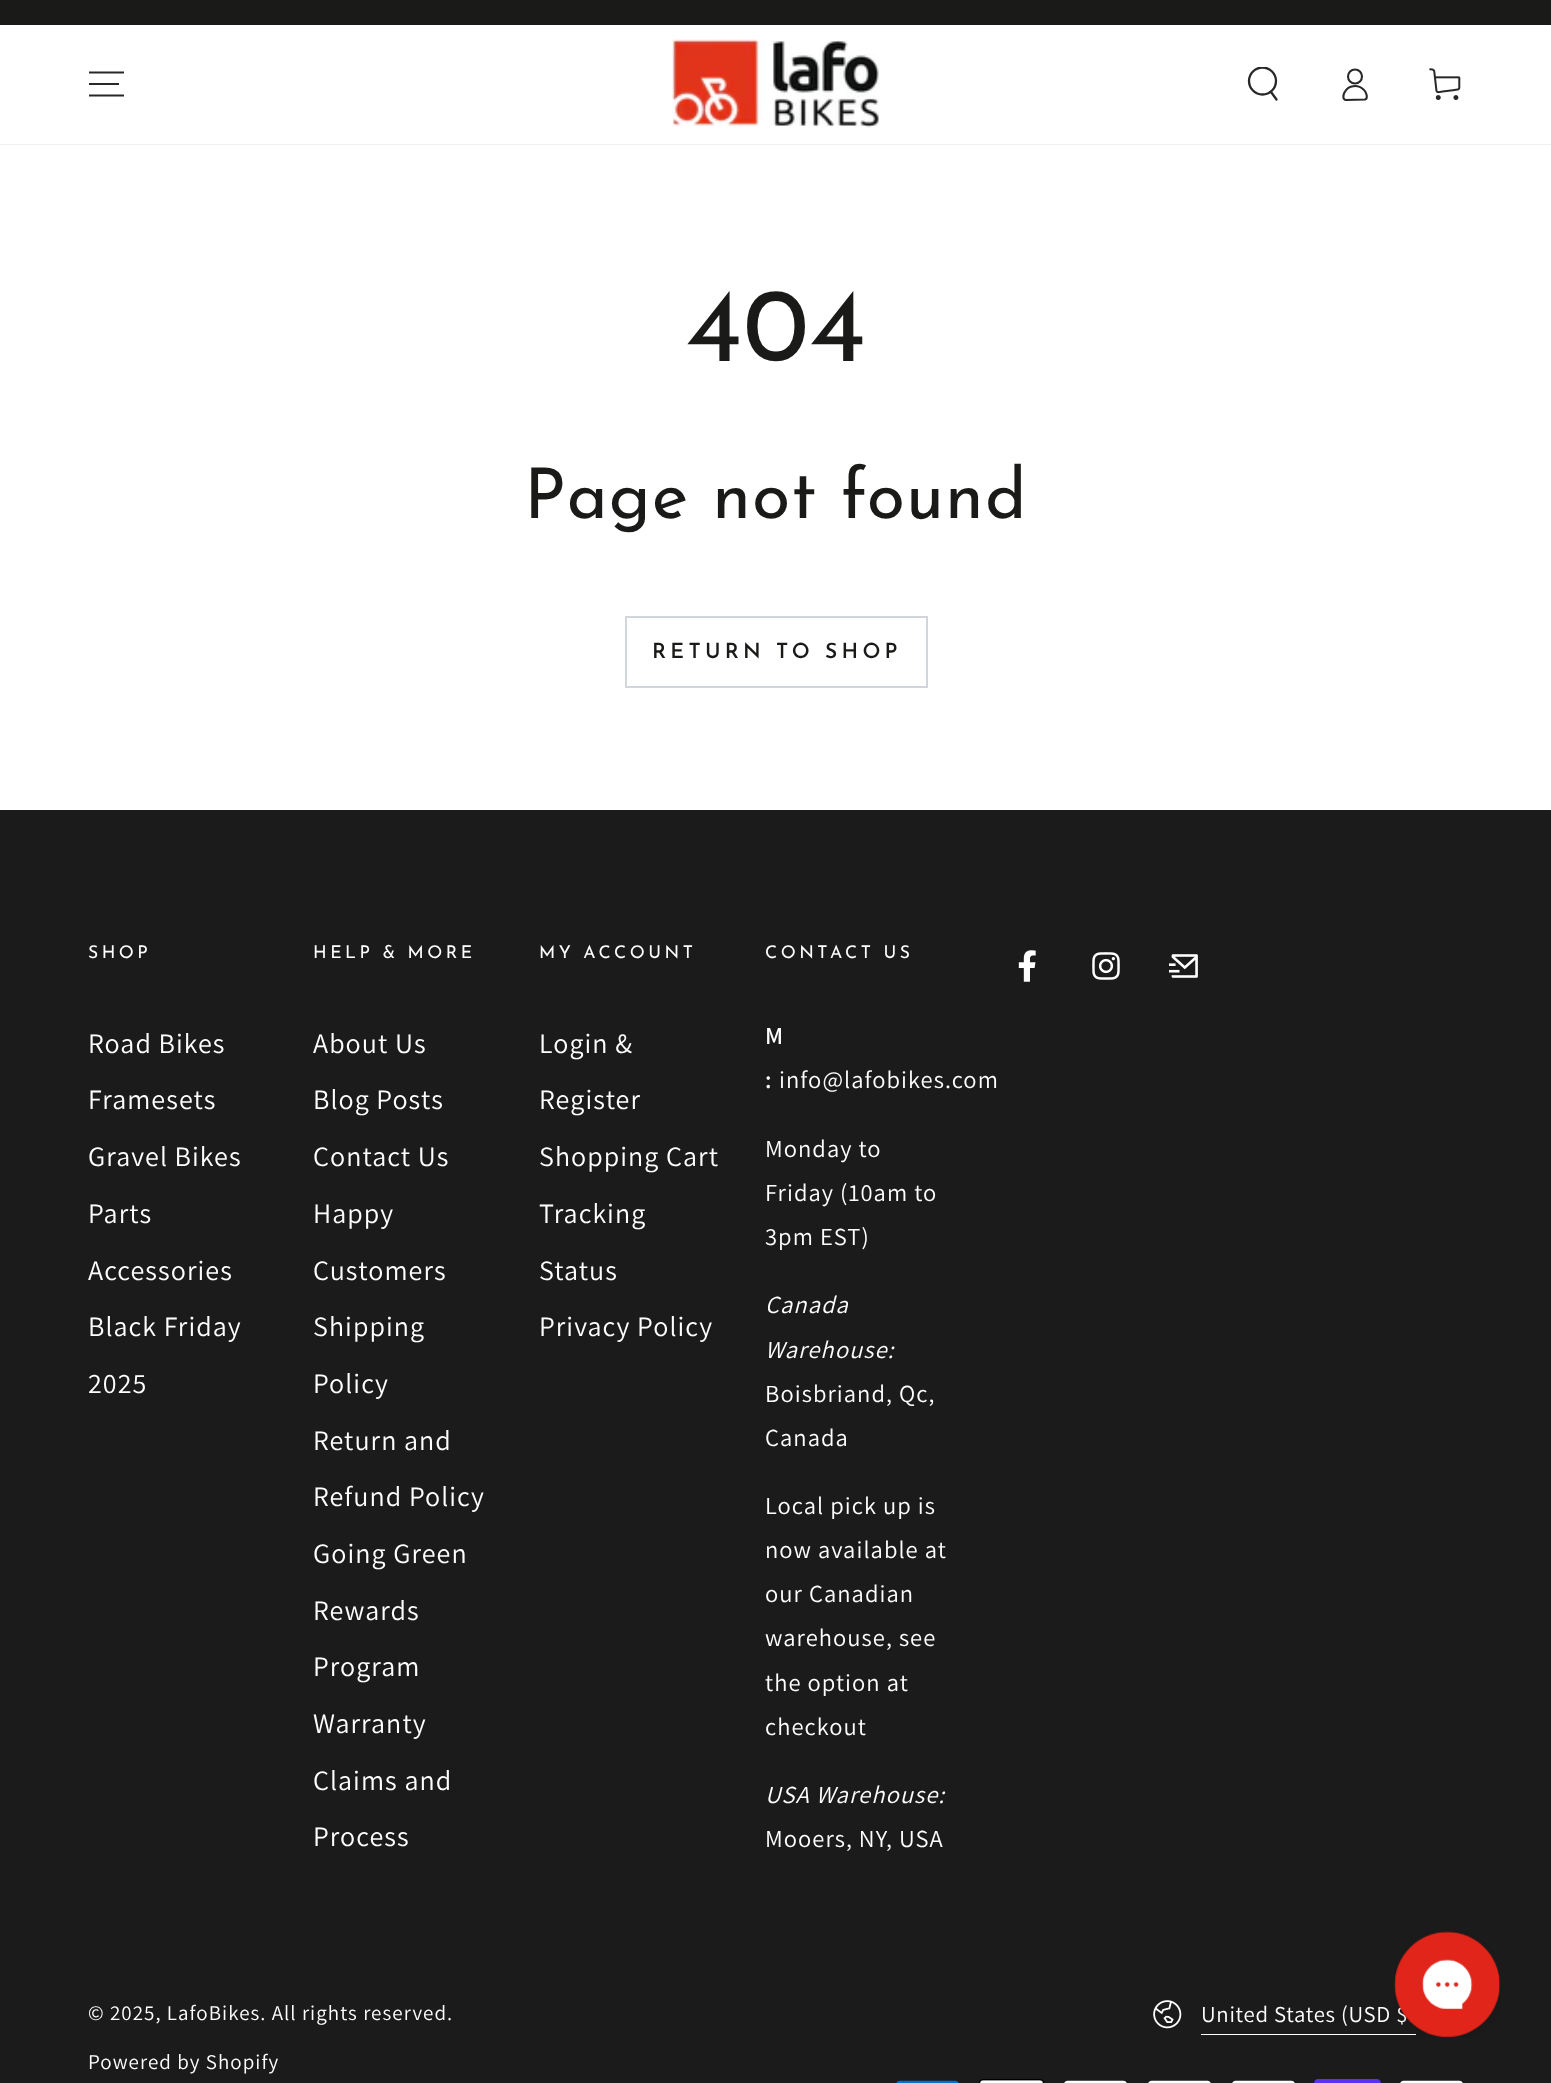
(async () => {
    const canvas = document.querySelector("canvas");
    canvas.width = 1551;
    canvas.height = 2083;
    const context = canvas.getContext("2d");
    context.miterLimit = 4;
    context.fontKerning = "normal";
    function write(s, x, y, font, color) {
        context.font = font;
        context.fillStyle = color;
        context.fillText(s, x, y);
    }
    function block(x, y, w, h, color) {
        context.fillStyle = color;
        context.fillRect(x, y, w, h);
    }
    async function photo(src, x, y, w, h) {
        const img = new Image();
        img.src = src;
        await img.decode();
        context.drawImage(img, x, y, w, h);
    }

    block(0, 0, 1551, 2083, "rgb(255, 255, 255)");
    block(0, 0, 1551, 25, "rgb(26, 27, 24)");
    block(0, 144, 1551, 1, "rgb(242, 242, 244)");
    context.beginPath();
    context.moveTo(89, 95.5);
    context.lineTo(124, 95.5);
    context.moveTo(89, 84);
    context.lineTo(119, 84);
    context.moveTo(89, 72.5);
    context.lineTo(124, 72.5);
    context.strokeStyle = "rgb(40, 40, 40)";
    context.lineWidth = 2;
    context.stroke();
    await photo("media/1.png", 672, 39, 208, 89);
    context.save();
    context.beginPath();
    context.rect(1246, 67, 35, 35);
    context.clip();
    context.beginPath();
    context.arc(1262.5, 81, 13.5, 0, Math.PI * 2);
    context.lineWidth = 2.3;
    context.stroke();
    context.restore();
    context.beginPath();
    context.moveTo(1271, 92);
    context.lineTo(1276.5, 99.5);
    context.lineWidth = 2.3;
    context.lineCap = "round";
    context.stroke();
    context.beginPath();
    context.moveTo(1355, 86);
    context.bezierCurveTo(1344.5, 86, 1340, 99.5, 1346, 100);
    context.lineTo(1365, 99.5);
    context.bezierCurveTo(1369, 98, 1365.5, 91, 1363.5, 89.5);
    context.bezierCurveTo(1361, 87, 1358, 86, 1355, 86);
    context.closePath();
    context.lineWidth = 2.1;
    context.lineCap = "butt";
    context.stroke();
    context.beginPath();
    context.arc(1355, 76.5, 7, 0, Math.PI * 2);
    context.stroke();
    await photo("media/2.png", 1429, 68, 32, 32);
    context.letterSpacing = "1.05px";
    write("404", 686, 361, "100 105px Josefin Sans", "rgb(26, 27, 24)");
    write("Page not found", 524, 518, "100 70px Josefin Sans", "rgb(26, 27, 24)");
    context.strokeStyle = "rgb(210, 213, 217)";
    context.lineWidth = 2;
    context.strokeRect(626, 617, 301, 70);
    context.letterSpacing = "4.25px";
    write("RETURN TO SHOP", 652, 658, "600 21px Josefin Sans", "rgb(26, 27, 24)");
    block(0, 810, 1551, 1273, "rgb(27, 27, 27)");
    context.letterSpacing = "3.5px";
    write("SHOP", 88, 958, "100 17.5px Josefin Sans", "rgb(255, 255, 255)");
    context.letterSpacing = "1.05px";
    write("Road Bikes", 88, 1053, "28px Assistant", "rgb(255, 255, 255)");
    write("Framesets", 88, 1109, "28px Assistant", "rgb(255, 255, 255)");
    write("Gravel Bikes", 88, 1166, "28px Assistant", "rgb(255, 255, 255)");
    write("Parts", 88, 1223, "28px Assistant", "rgb(255, 255, 255)");
    write("Accessories", 88, 1280, "28px Assistant", "rgb(255, 255, 255)");
    write("Black Friday", 88, 1336, "28px Assistant", "rgb(255, 255, 255)");
    write("2025", 88, 1393, "28px Assistant", "rgb(255, 255, 255)");
    context.letterSpacing = "3.5px";
    write("HELP & MORE", 313, 958, "100 17.5px Josefin Sans", "rgb(255, 255, 255)");
    context.letterSpacing = "1.05px";
    write("About Us", 313, 1053, "28px Assistant", "rgb(255, 255, 255)");
    write("Blog Posts", 313, 1109, "28px Assistant", "rgb(255, 255, 255)");
    write("Contact Us", 313, 1166, "28px Assistant", "rgb(255, 255, 255)");
    write("Happy", 313, 1223, "28px Assistant", "rgb(255, 255, 255)");
    write("Customers", 313, 1280, "28px Assistant", "rgb(255, 255, 255)");
    write("Shipping", 313, 1336, "28px Assistant", "rgb(255, 255, 255)");
    write("Policy", 313, 1393, "28px Assistant", "rgb(255, 255, 255)");
    write("Return and", 313, 1450, "28px Assistant", "rgb(255, 255, 255)");
    write("Refund Policy", 313, 1506, "28px Assistant", "rgb(255, 255, 255)");
    write("Going Green", 313, 1563, "28px Assistant", "rgb(255, 255, 255)");
    write("Rewards", 313, 1620, "28px Assistant", "rgb(255, 255, 255)");
    write("Program", 313, 1676, "28px Assistant", "rgb(255, 255, 255)");
    write("Warranty", 313, 1733, "28px Assistant", "rgb(255, 255, 255)");
    write("Claims and", 313, 1790, "28px Assistant", "rgb(255, 255, 255)");
    write("Process", 313, 1846, "28px Assistant", "rgb(255, 255, 255)");
    context.letterSpacing = "3.5px";
    write("MY ACCOUNT", 539, 958, "100 17.5px Josefin Sans", "rgb(255, 255, 255)");
    context.letterSpacing = "1.05px";
    write("Login &", 539, 1053, "28px Assistant", "rgb(255, 255, 255)");
    write("Register", 539, 1109, "28px Assistant", "rgb(255, 255, 255)");
    write("Shopping Cart", 539, 1166, "28px Assistant", "rgb(255, 255, 255)");
    write("Tracking", 539, 1223, "28px Assistant", "rgb(255, 255, 255)");
    write("Status", 539, 1280, "28px Assistant", "rgb(255, 255, 255)");
    write("Privacy Policy", 539, 1336, "28px Assistant", "rgb(255, 255, 255)");
    context.letterSpacing = "3.5px";
    write("CONTACT US", 765, 958, "100 17.5px Josefin Sans", "rgb(255, 255, 255)");
    context.letterSpacing = "1.05px";
    write("M", 765, 1044, "600 24.5px Assistant", "rgb(255, 255, 255)");
    write(":", 765, 1088, "600 24.5px Assistant", "rgb(255, 255, 255)");
    write("info@lafobikes.com", 779, 1088, "24.5px Assistant", "rgb(255, 255, 255)");
    write("Monday to", 765, 1157, "24.5px Assistant", "rgb(255, 255, 255)");
    write("Friday (10am to", 765, 1201, "24.5px Assistant", "rgb(255, 255, 255)");
    write("3pm EST)", 765, 1245, "24.5px Assistant", "rgb(255, 255, 255)");
    write("Canada", 765, 1313, "italic 24.5px Assistant", "rgb(255, 255, 255)");
    write("Warehouse:", 765, 1358, "italic 24.5px Assistant", "rgb(255, 255, 255)");
    write("Boisbriand, Qc,", 765, 1402, "24.5px Assistant", "rgb(255, 255, 255)");
    write("Canada", 765, 1446, "24.5px Assistant", "rgb(255, 255, 255)");
    write("Local pick up is", 765, 1514, "24.5px Assistant", "rgb(255, 255, 255)");
    write("now available at", 765, 1558, "24.5px Assistant", "rgb(255, 255, 255)");
    write("our Canadian", 765, 1602, "24.5px Assistant", "rgb(255, 255, 255)");
    write("warehouse, see", 765, 1646, "24.5px Assistant", "rgb(255, 255, 255)");
    write("the option at", 765, 1691, "24.5px Assistant", "rgb(255, 255, 255)");
    write("checkout", 765, 1735, "24.5px Assistant", "rgb(255, 255, 255)");
    write("USA Warehouse:", 765, 1803, "italic 24.5px Assistant", "rgb(255, 255, 255)");
    write("Mooers, NY, USA", 765, 1847, "24.5px Assistant", "rgb(255, 255, 255)");
    await photo("media/3.png", 1018, 950, 18, 32);
    await photo("media/4.png", 1092, 952, 28, 28);
    await photo("media/5.png", 1169, 954, 29, 24);
    write("© 2025, LafoBikes. All rights reserved.", 88, 2020, "21px Assistant", "rgb(255, 255, 255)");
    write("Powered by Shopify", 88, 2069, "21px Assistant", "rgb(255, 255, 255)");
    await photo("media/6.png", 1153, 2000, 29, 29);
    block(1201, 2034, 215, 1, "rgb(255, 255, 255)");
    context.letterSpacing = "0.7px";
    write("United States (USD $", 1201, 2022, "22.75px Assistant", "rgb(255, 255, 255)");
    await photo("media/7.png", 896, 2080, 63, 3);
    await photo("media/8.png", 978, 2079, 67, 4);
    await photo("media/9.png", 1064, 2080, 63, 3);
    await photo("media/9.png", 1148, 2080, 63, 3);
    await photo("media/9.png", 1232, 2080, 63, 3);
    await photo("media/10.png", 1314, 2079, 67, 4);
    await photo("media/9.png", 1400, 2080, 63, 3);
    await photo("media/11.png", 1394, 1931, 107, 107);
})();
